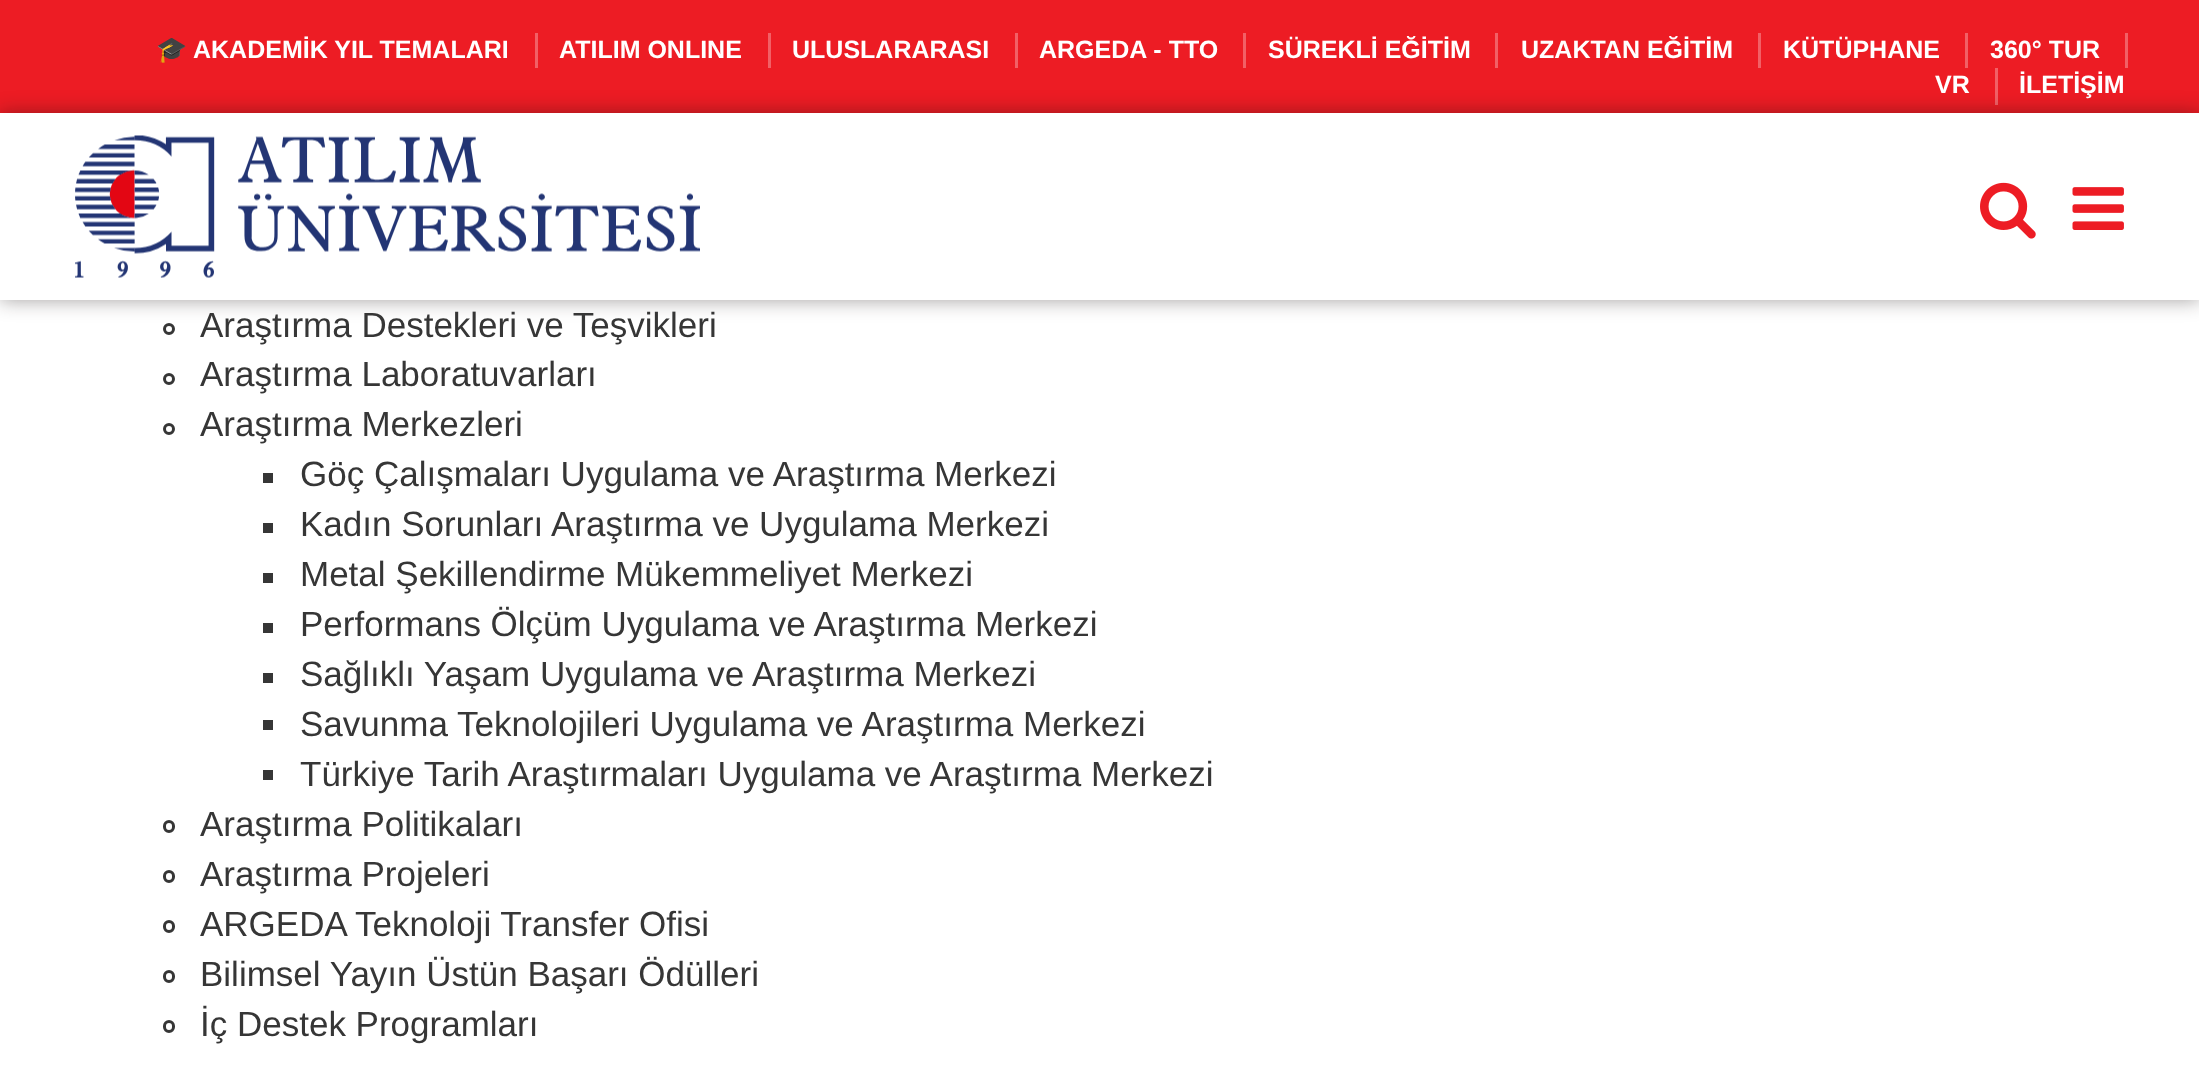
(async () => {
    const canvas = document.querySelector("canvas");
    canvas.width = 2199;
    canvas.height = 1066;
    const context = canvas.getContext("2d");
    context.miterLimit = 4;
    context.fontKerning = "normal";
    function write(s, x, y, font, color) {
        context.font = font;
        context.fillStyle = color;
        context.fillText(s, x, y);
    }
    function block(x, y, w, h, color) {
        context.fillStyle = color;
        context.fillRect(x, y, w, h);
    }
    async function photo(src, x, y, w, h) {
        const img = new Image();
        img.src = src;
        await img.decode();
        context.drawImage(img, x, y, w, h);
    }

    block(0, 0, 2199, 1066, "rgb(255, 255, 255)");
    block(0, 0, 2199, 113, "rgb(237, 28, 36)");
    write("🎓", 156, 58, "bold 25px Noto Color Emoji", "rgb(255, 255, 255)");
    write("AKADEMİK YIL TEMALARI", 193, 58, "bold 25px Liberation Sans", "rgb(255, 255, 255)");
    block(535, 33, 3, 35, "rgb(242, 96, 102)");
    write("ATILIM ONLINE", 559, 58, "bold 25px Liberation Sans", "rgb(255, 255, 255)");
    block(768, 33, 3, 35, "rgb(242, 96, 102)");
    write("ULUSLARARASI", 792, 58, "bold 25px Liberation Sans", "rgb(255, 255, 255)");
    block(1015, 33, 3, 35, "rgb(242, 96, 102)");
    write("ARGEDA - TTO", 1039, 58, "bold 25px Liberation Sans", "rgb(255, 255, 255)");
    block(1243, 33, 3, 35, "rgb(242, 96, 102)");
    write("SÜREKLİ EĞİTİM", 1268, 58, "bold 25px Liberation Sans", "rgb(255, 255, 255)");
    block(1495, 33, 3, 35, "rgb(242, 96, 102)");
    write("UZAKTAN EĞİTİM", 1521, 58, "bold 25px Liberation Sans", "rgb(255, 255, 255)");
    block(1758, 33, 3, 35, "rgb(242, 96, 102)");
    write("KÜTÜPHANE", 1783, 58, "bold 25px Liberation Sans", "rgb(255, 255, 255)");
    block(1965, 33, 3, 35, "rgb(242, 96, 102)");
    write("360° TUR", 1990, 58, "bold 25px Liberation Sans", "rgb(255, 255, 255)");
    block(2125, 33, 3, 35, "rgb(242, 96, 102)");
    write("VR", 1935, 93, "bold 25px Liberation Sans", "rgb(255, 255, 255)");
    block(1995, 68, 3, 37, "rgb(242, 96, 102)");
    write("İLETİŞİM", 2019, 93, "bold 25px Liberation Sans", "rgb(255, 255, 255)");
    context.beginPath();
    context.arc(169, 329, 4.5, 0, Math.PI * 2);
    context.strokeStyle = "rgb(54, 54, 54)";
    context.lineWidth = 3;
    context.stroke();
    context.fillStyle = "rgba(20, 12, 12, 0.4)";
    context.filter = "blur(10px)";
    context.beginPath();
    context.rect(0, 113, 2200, 187);
    context.fill();
    context.filter = "none";
    block(0, 113, 2199, 187, "rgb(255, 255, 255)");
    await photo("media/1.png", 75, 135, 625, 143);
    await photo("media/2.png", 1980, 182, 56, 57);
    await photo("media/3.png", 2072, 187, 52, 43);
    write("Araştırma Destekleri ve Teşvikleri", 200, 337, "35px Liberation Sans", "rgb(54, 54, 54)");
    context.beginPath();
    context.arc(169, 379, 4.5, 0, Math.PI * 2);
    context.stroke();
    write("Araştırma Laboratuvarları", 200, 386, "35px Liberation Sans", "rgb(54, 54, 54)");
    context.beginPath();
    context.arc(169, 429, 4.5, 0, Math.PI * 2);
    context.stroke();
    write("Araştırma Merkezleri", 200, 436, "35px Liberation Sans", "rgb(54, 54, 54)");
    block(263, 473, 10, 10, "rgb(54, 54, 54)");
    write("Göç Çalışmaları Uygulama ve Araştırma Merkezi", 300, 486, "35px Liberation Sans", "rgb(54, 54, 54)");
    block(263, 523, 10, 10, "rgb(54, 54, 54)");
    write("Kadın Sorunları Araştırma ve Uygulama Merkezi", 300, 536, "35px Liberation Sans", "rgb(54, 54, 54)");
    block(263, 573, 10, 10, "rgb(54, 54, 54)");
    write("Metal Şekillendirme Mükemmeliyet Merkezi", 300, 586, "35px Liberation Sans", "rgb(54, 54, 54)");
    block(263, 623, 10, 10, "rgb(54, 54, 54)");
    write("Performans Ölçüm Uygulama ve Araştırma Merkezi", 300, 636, "35px Liberation Sans", "rgb(54, 54, 54)");
    block(263, 673, 10, 10, "rgb(54, 54, 54)");
    write("Sağlıklı Yaşam Uygulama ve Araştırma Merkezi", 300, 686, "35px Liberation Sans", "rgb(54, 54, 54)");
    block(263, 720, 10, 10, "rgb(54, 54, 54)");
    write("Savunma Teknolojileri Uygulama ve Araştırma Merkezi", 300, 736, "35px Liberation Sans", "rgb(54, 54, 54)");
    block(263, 770, 10, 10, "rgb(54, 54, 54)");
    write("Türkiye Tarih Araştırmaları Uygulama ve Araştırma Merkezi", 300, 786, "35px Liberation Sans", "rgb(54, 54, 54)");
    context.beginPath();
    context.roundRect(164.5, 821.5, 9, 10, 4.5);
    context.stroke();
    write("Araştırma Politikaları", 200, 836, "35px Liberation Sans", "rgb(54, 54, 54)");
    context.beginPath();
    context.roundRect(164.5, 871.5, 9, 10, 4.5);
    context.stroke();
    write("Araştırma Projeleri", 200, 886, "35px Liberation Sans", "rgb(54, 54, 54)");
    context.beginPath();
    context.roundRect(164.5, 921.5, 9, 10, 4.5);
    context.stroke();
    write("ARGEDA Teknoloji Transfer Ofisi", 200, 936, "35px Liberation Sans", "rgb(54, 54, 54)");
    context.beginPath();
    context.roundRect(164.5, 971.5, 9, 10, 4.5);
    context.stroke();
    write("Bilimsel Yayın Üstün Başarı Ödülleri", 200, 986, "35px Liberation Sans", "rgb(54, 54, 54)");
    context.beginPath();
    context.roundRect(164.5, 1021.5, 9, 10, 4.5);
    context.stroke();
    write("İç Destek Programları", 200, 1036, "35px Liberation Sans", "rgb(54, 54, 54)");
})();
